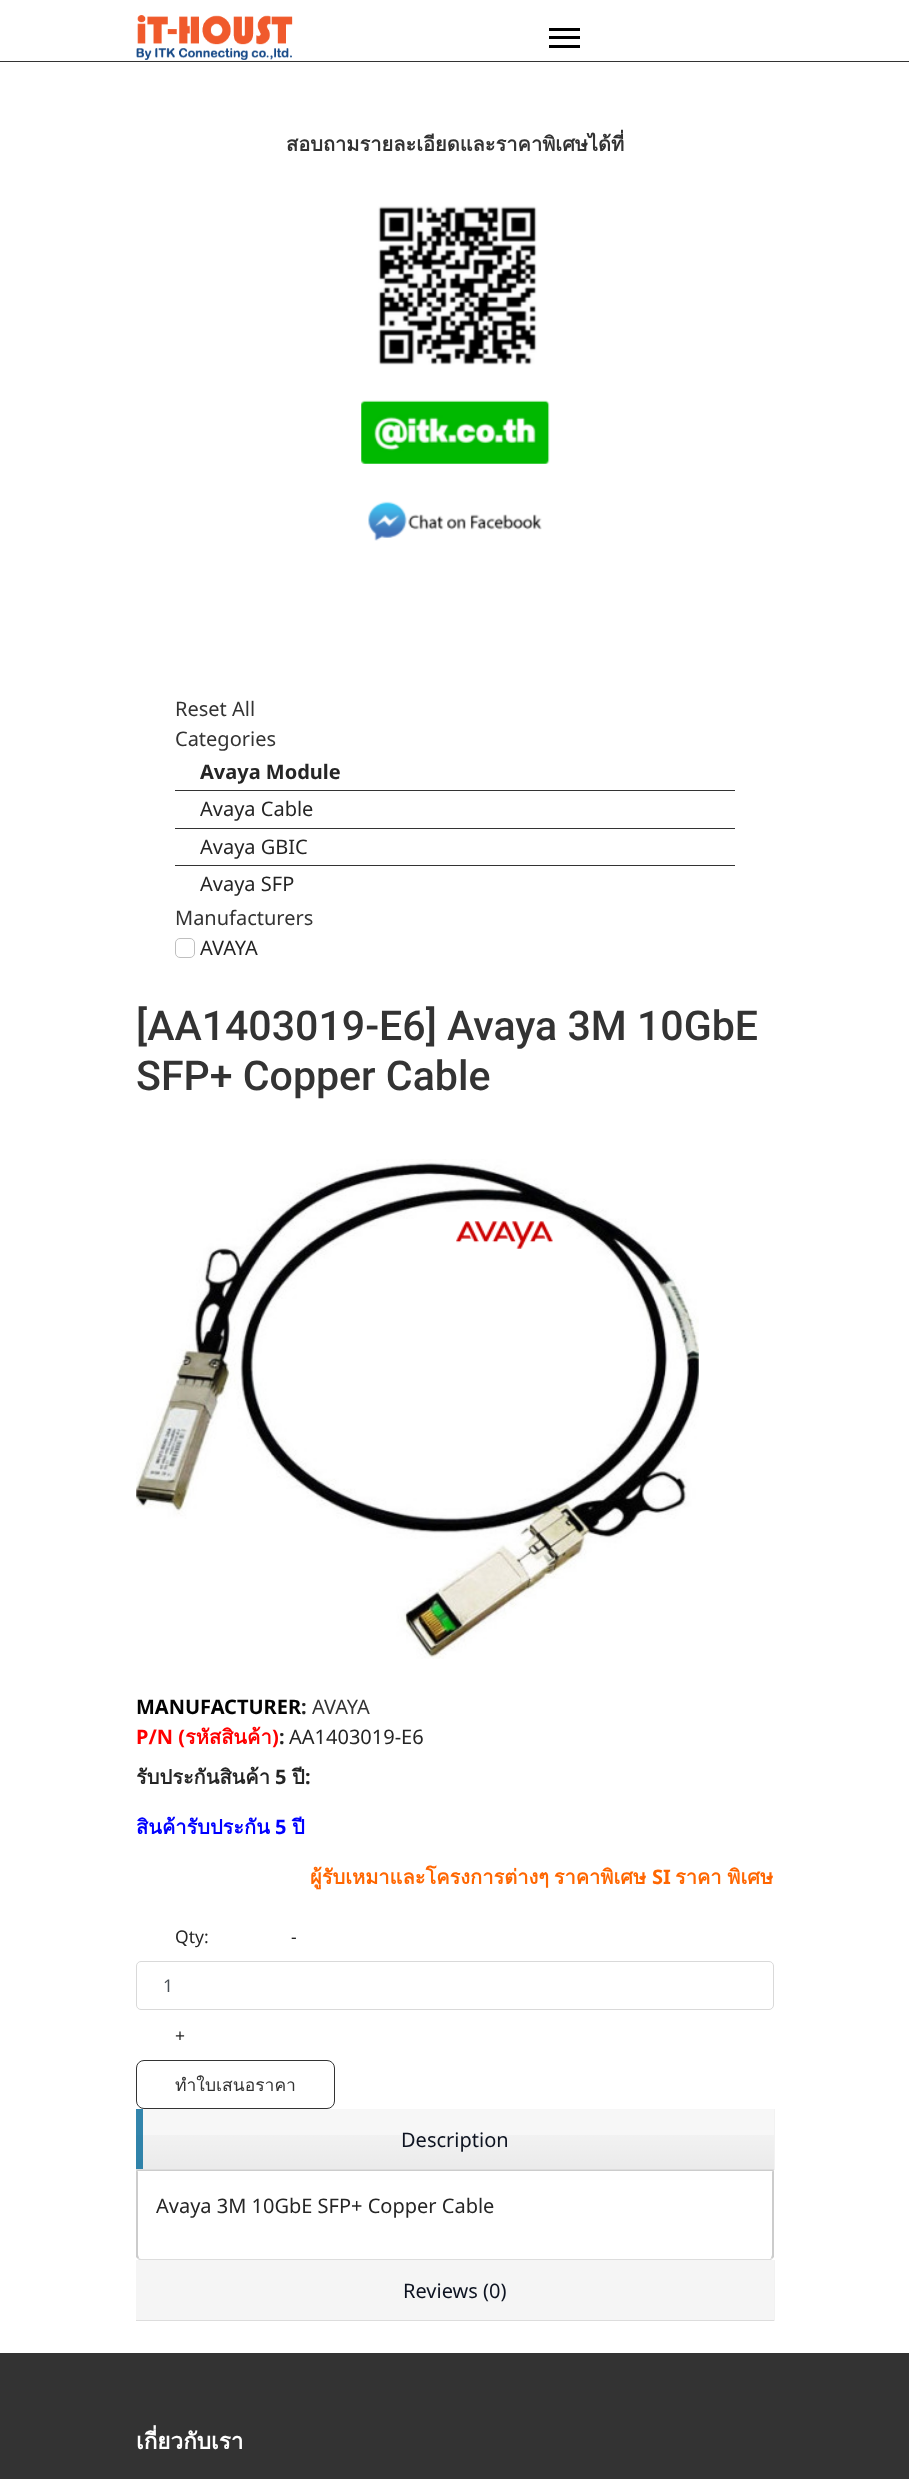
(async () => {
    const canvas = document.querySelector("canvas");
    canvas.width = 909;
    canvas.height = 2479;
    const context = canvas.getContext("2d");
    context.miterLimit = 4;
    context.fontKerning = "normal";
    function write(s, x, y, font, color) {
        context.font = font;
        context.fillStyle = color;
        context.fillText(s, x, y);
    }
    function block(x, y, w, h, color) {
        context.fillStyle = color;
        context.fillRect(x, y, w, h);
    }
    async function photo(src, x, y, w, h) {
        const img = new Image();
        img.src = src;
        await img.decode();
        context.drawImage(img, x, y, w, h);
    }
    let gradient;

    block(0, 0, 909, 2479, "rgb(255, 255, 255)");
    block(0, 61, 909, 1, "rgb(51, 51, 51)");
    await photo("media/1.png", 136, 15, 157, 45);
    block(549, 28, 31, 3, "rgb(0, 0, 0)");
    block(549, 36, 31, 3, "rgb(0, 0, 0)");
    block(549, 45, 31, 3, "rgb(0, 0, 0)");
    write("สอบถามรายละเอียดและราคาพิเศษได้ที่", 286, 151, "bold 20px Loma", "rgb(51, 51, 51)");
    await photo("media/2.png", 378, 206, 159, 159);
    await photo("media/3.png", 361, 400, 189, 64);
    await photo("media/4.png", 368, 501, 174, 40);
    write("Reset All", 175, 716, "20px Noto Sans", "rgb(51, 51, 51)");
    write("Categories", 175, 746, "20px Noto Sans", "rgb(51, 51, 51)");
    block(175, 790, 560, 1, "rgb(51, 51, 51)");
    write("Avaya Module", 200, 779, "bold 20px Noto Sans", "rgb(37, 37, 37)");
    block(175, 828, 560, 1, "rgb(51, 51, 51)");
    write("Avaya Cable", 200, 816, "20px Noto Sans", "rgb(37, 37, 37)");
    block(175, 865, 560, 1, "rgb(51, 51, 51)");
    write("Avaya GBIC", 200, 854, "20px Noto Sans", "rgb(37, 37, 37)");
    write("Avaya SFP", 200, 891, "20px Noto Sans", "rgb(37, 37, 37)");
    write("Manufacturers", 175, 925, "20px Noto Sans", "rgb(51, 51, 51)");
    context.beginPath();
    context.roundRect(175.5, 938.5, 19, 19, 4.5);
    context.strokeStyle = "rgb(191, 191, 191)";
    context.stroke();
    write("AVAYA", 200, 955, "20px Noto Sans", "rgb(37, 37, 37)");
    write("[AA1403019-E6] Avaya 3M 10GbE", 136, 1040, "500 41.1px Roboto", "rgb(51, 51, 51)");
    write("SFP+ Copper Cable", 136, 1090, "500 41.1px Roboto", "rgb(51, 51, 51)");
    await photo("media/5.png", 136, 1159, 563, 500);
    await photo("media/6.png", 456, 1221, 97, 28);
    write("MANUFACTURER", 136, 1714, "bold 20px Noto Sans", "rgb(3, 3, 3)");
    write(":", 301, 1714, "bold 20px Noto Sans", "rgb(37, 37, 37)");
    write("AVAYA", 312, 1714, "20px Noto Sans", "rgb(51, 51, 51)");
    write("P/N (", 136, 1744, "bold 20px Noto Sans", "rgb(255, 0, 0)");
    write("รหัสสินค้า", 185, 1744, "bold 20px Loma", "rgb(255, 0, 0)");
    write(")", 272, 1744, "bold 20px Noto Sans", "rgb(255, 0, 0)");
    write(":", 279, 1744, "bold 20px Noto Sans", "rgb(37, 37, 37)");
    write("AA1403019-E6", 289, 1744, "20px Noto Sans", "rgb(37, 37, 37)");
    write("รับประกันสินค้า", 136, 1784, "bold 20px Loma", "rgb(37, 37, 37)");
    write("5", 275, 1784, "bold 20px Noto Sans", "rgb(37, 37, 37)");
    write("ปี", 292, 1784, "bold 20px Loma", "rgb(37, 37, 37)");
    write(":", 305, 1784, "bold 20px Noto Sans", "rgb(37, 37, 37)");
    write("สินค้ารับประกัน", 136, 1834, "bold 20px Loma", "rgb(0, 0, 255)");
    write("5", 275, 1834, "bold 20px Noto Sans", "rgb(0, 0, 255)");
    write("ปี", 292, 1834, "bold 20px Loma", "rgb(0, 0, 255)");
    context.wordSpacing = "-2px";
    write("ผู้รับเหมาและโครงการต่างๆ ราคาพิเศษ", 310, 1884, "bold 20px Loma", "rgb(255, 102, 0)");
    context.wordSpacing = "0px";
    write("SI", 652, 1884, "bold 20px Noto Sans", "rgb(255, 102, 0)");
    context.wordSpacing = "-1px";
    write("ราคา พิเศษ", 675, 1884, "bold 20px Loma", "rgb(255, 102, 0)");
    context.wordSpacing = "0px";
    write("Qty:", 175, 1943, "17.5px Noto Sans", "rgb(37, 37, 37)");
    write("-", 291, 1943, "17.5px Noto Sans", "rgb(37, 37, 37)");
    context.beginPath();
    context.roundRect(136.5, 1961.5, 637, 48, 4.5);
    context.strokeStyle = "rgb(217, 217, 217)";
    context.stroke();
    write("1", 163, 1992, "17.5px Noto Sans", "rgb(73, 80, 87)");
    write("+", 175, 2042, "17.5px Noto Sans", "rgb(37, 37, 37)");
    context.beginPath();
    context.roundRect(136.5, 2060.5, 198, 48, 7.5);
    context.strokeStyle = "rgb(51, 51, 51)";
    context.stroke();
    write("ทำใบเสนอราคา", 175, 2091, "17.5px Loma", "rgb(51, 51, 51)");
    block(774, 2109, 1, 61, "rgba(0, 0, 0, 0.05)");
    block(136, 2109, 638, 60, "rgba(0, 0, 0, 0.03)");
    gradient = context.createLinearGradient(455, 2109, 455, 2169);
    gradient.addColorStop(0, "rgba(0, 0, 0, 0)");
    gradient.addColorStop(1, "rgba(0, 0, 0, 0.05)");
    context.fillStyle = gradient;
    context.fillRect(136, 2135, 638, 34);
    block(136, 2169, 638, 1, "rgb(221, 221, 221)");
    block(136, 2109, 7, 60, "rgba(0, 104, 152, 0.8)");
    write("Description", 401, 2147, "20px Noto Sans", "rgb(13, 19, 33)");
    context.fillStyle = "rgb(204, 204, 204)";
    context.beginPath();
    context.moveTo(138, 2171);
    context.lineTo(772, 2171);
    context.lineTo(772, 2172);
    context.lineTo(774, 2170);
    context.lineTo(136, 2170);
    context.lineTo(138, 2172);
    context.closePath();
    context.fill();
    context.beginPath();
    context.moveTo(774, 2170);
    context.lineTo(774, 2257);
    context.lineTo(772, 2259);
    context.lineTo(771, 2258);
    context.lineTo(772, 2255);
    context.lineTo(772, 2172);
    context.closePath();
    context.fill();
    context.fillStyle = "rgb(221, 221, 221)";
    context.beginPath();
    context.moveTo(141, 2260);
    context.lineTo(769, 2260);
    context.bezierCurveTo(770, 2260, 772, 2260, 772, 2259);
    context.lineTo(771, 2258);
    context.lineTo(770, 2259);
    context.lineTo(141, 2259);
    context.bezierCurveTo(140, 2259, 139, 2258, 139, 2258);
    context.lineTo(138, 2259);
    context.bezierCurveTo(138, 2260, 140, 2260, 141, 2260);
    context.closePath();
    context.fill();
    context.fillStyle = "rgb(204, 204, 204)";
    context.beginPath();
    context.moveTo(138, 2259);
    context.lineTo(136, 2257);
    context.lineTo(136, 2170);
    context.lineTo(138, 2172);
    context.lineTo(138, 2255);
    context.lineTo(139, 2258);
    context.closePath();
    context.fill();
    write("Avaya 3M 10GbE SFP+ Copper Cable", 156, 2213, "20px Noto Sans", "rgb(37, 37, 37)");
    block(774, 2260, 1, 61, "rgba(0, 0, 0, 0.05)");
    block(136, 2260, 638, 60, "rgb(245, 245, 245)");
    block(136, 2320, 638, 1, "rgb(221, 221, 221)");
    write("Reviews (0)", 403, 2298, "20px Noto Sans", "rgb(13, 19, 33)");
    block(0, 2353, 909, 126, "rgb(51, 51, 51)");
    write("เกี่ยวกับเรา", 136, 2449, "bold 22.5px Loma", "rgb(255, 255, 255)");
})();
